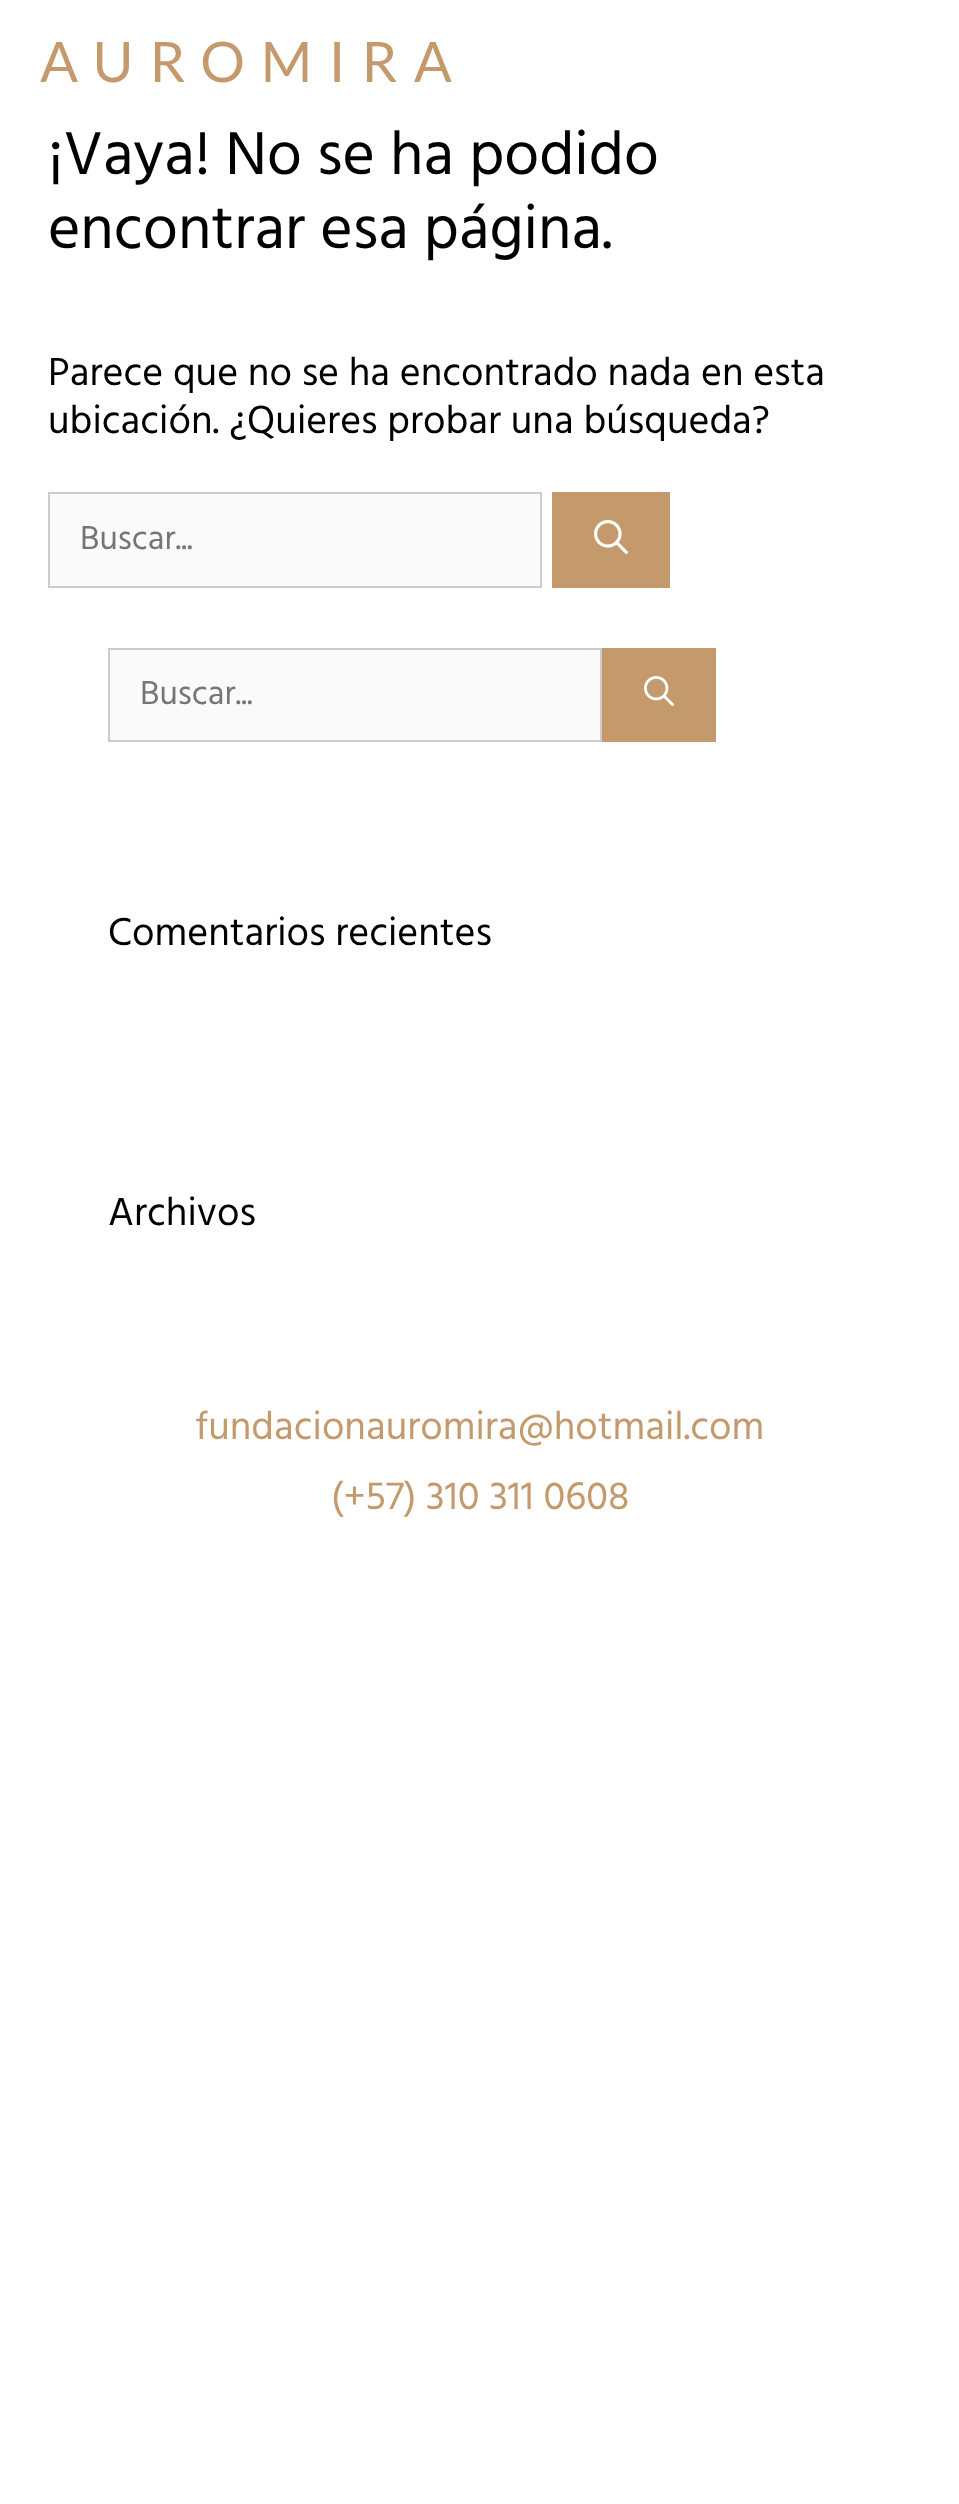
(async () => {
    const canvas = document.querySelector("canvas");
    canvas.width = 959;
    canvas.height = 2504;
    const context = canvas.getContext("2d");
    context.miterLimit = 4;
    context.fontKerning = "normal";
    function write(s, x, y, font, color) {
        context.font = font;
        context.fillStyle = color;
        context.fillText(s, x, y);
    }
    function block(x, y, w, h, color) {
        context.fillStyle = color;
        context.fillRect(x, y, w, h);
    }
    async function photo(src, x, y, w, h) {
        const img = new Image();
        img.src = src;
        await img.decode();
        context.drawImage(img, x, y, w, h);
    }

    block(0, 0, 959, 2504, "rgb(255, 255, 255)");
    context.letterSpacing = "16px";
    write("AUROMIRA", 40, 82, "56px Lato", "rgb(196, 154, 109)");
    context.letterSpacing = "0px";
    write("¡Vaya! No se ha podido", 48, 174, "62px Hind Madurai", "rgb(0, 0, 0)");
    write("encontrar esa página.", 48, 248, "62px Hind Madurai", "rgb(0, 0, 0)");
    write("Parece que no se ha encontrado nada en esta", 48, 385, "40px Hind Madurai", "rgb(0, 0, 0)");
    write("ubicación. ¿Quieres probar una búsqueda?", 48, 433, "40px Hind Madurai", "rgb(0, 0, 0)");
    context.fillStyle = "rgb(250, 250, 250)";
    context.beginPath();
    context.rect(49, 493, 492, 94);
    context.fill();
    context.strokeStyle = "rgb(204, 204, 204)";
    context.lineWidth = 2;
    context.stroke();
    write("Buscar...", 80, 549, "34px Hind", "rgb(117, 117, 117)");
    block(552, 492, 118, 96, "rgb(196, 154, 109)");
    await photo("media/1.png", 594, 520, 34, 34);
    context.fillStyle = "rgb(250, 250, 250)";
    context.beginPath();
    context.rect(109, 649, 492, 92);
    context.fill();
    context.stroke();
    write("Buscar...", 140, 704, "34px Hind", "rgb(117, 117, 117)");
    block(602, 648, 114, 94, "rgb(196, 154, 109)");
    await photo("media/2.png", 644, 676, 30, 30);
    write("Comentarios recientes", 108, 945, "40px Hind Madurai", "rgb(0, 0, 0)");
    write("Archivos", 108, 1225, "40px Hind Madurai", "rgb(0, 0, 0)");
    write("fundacionauromira@hotmail.com", 195, 1439, "40px Hind Madurai", "rgb(196, 154, 109)");
    write("(+57) 310 311 0608", 331, 1509, "40px Hind Madurai", "rgb(196, 154, 109)");
})();
